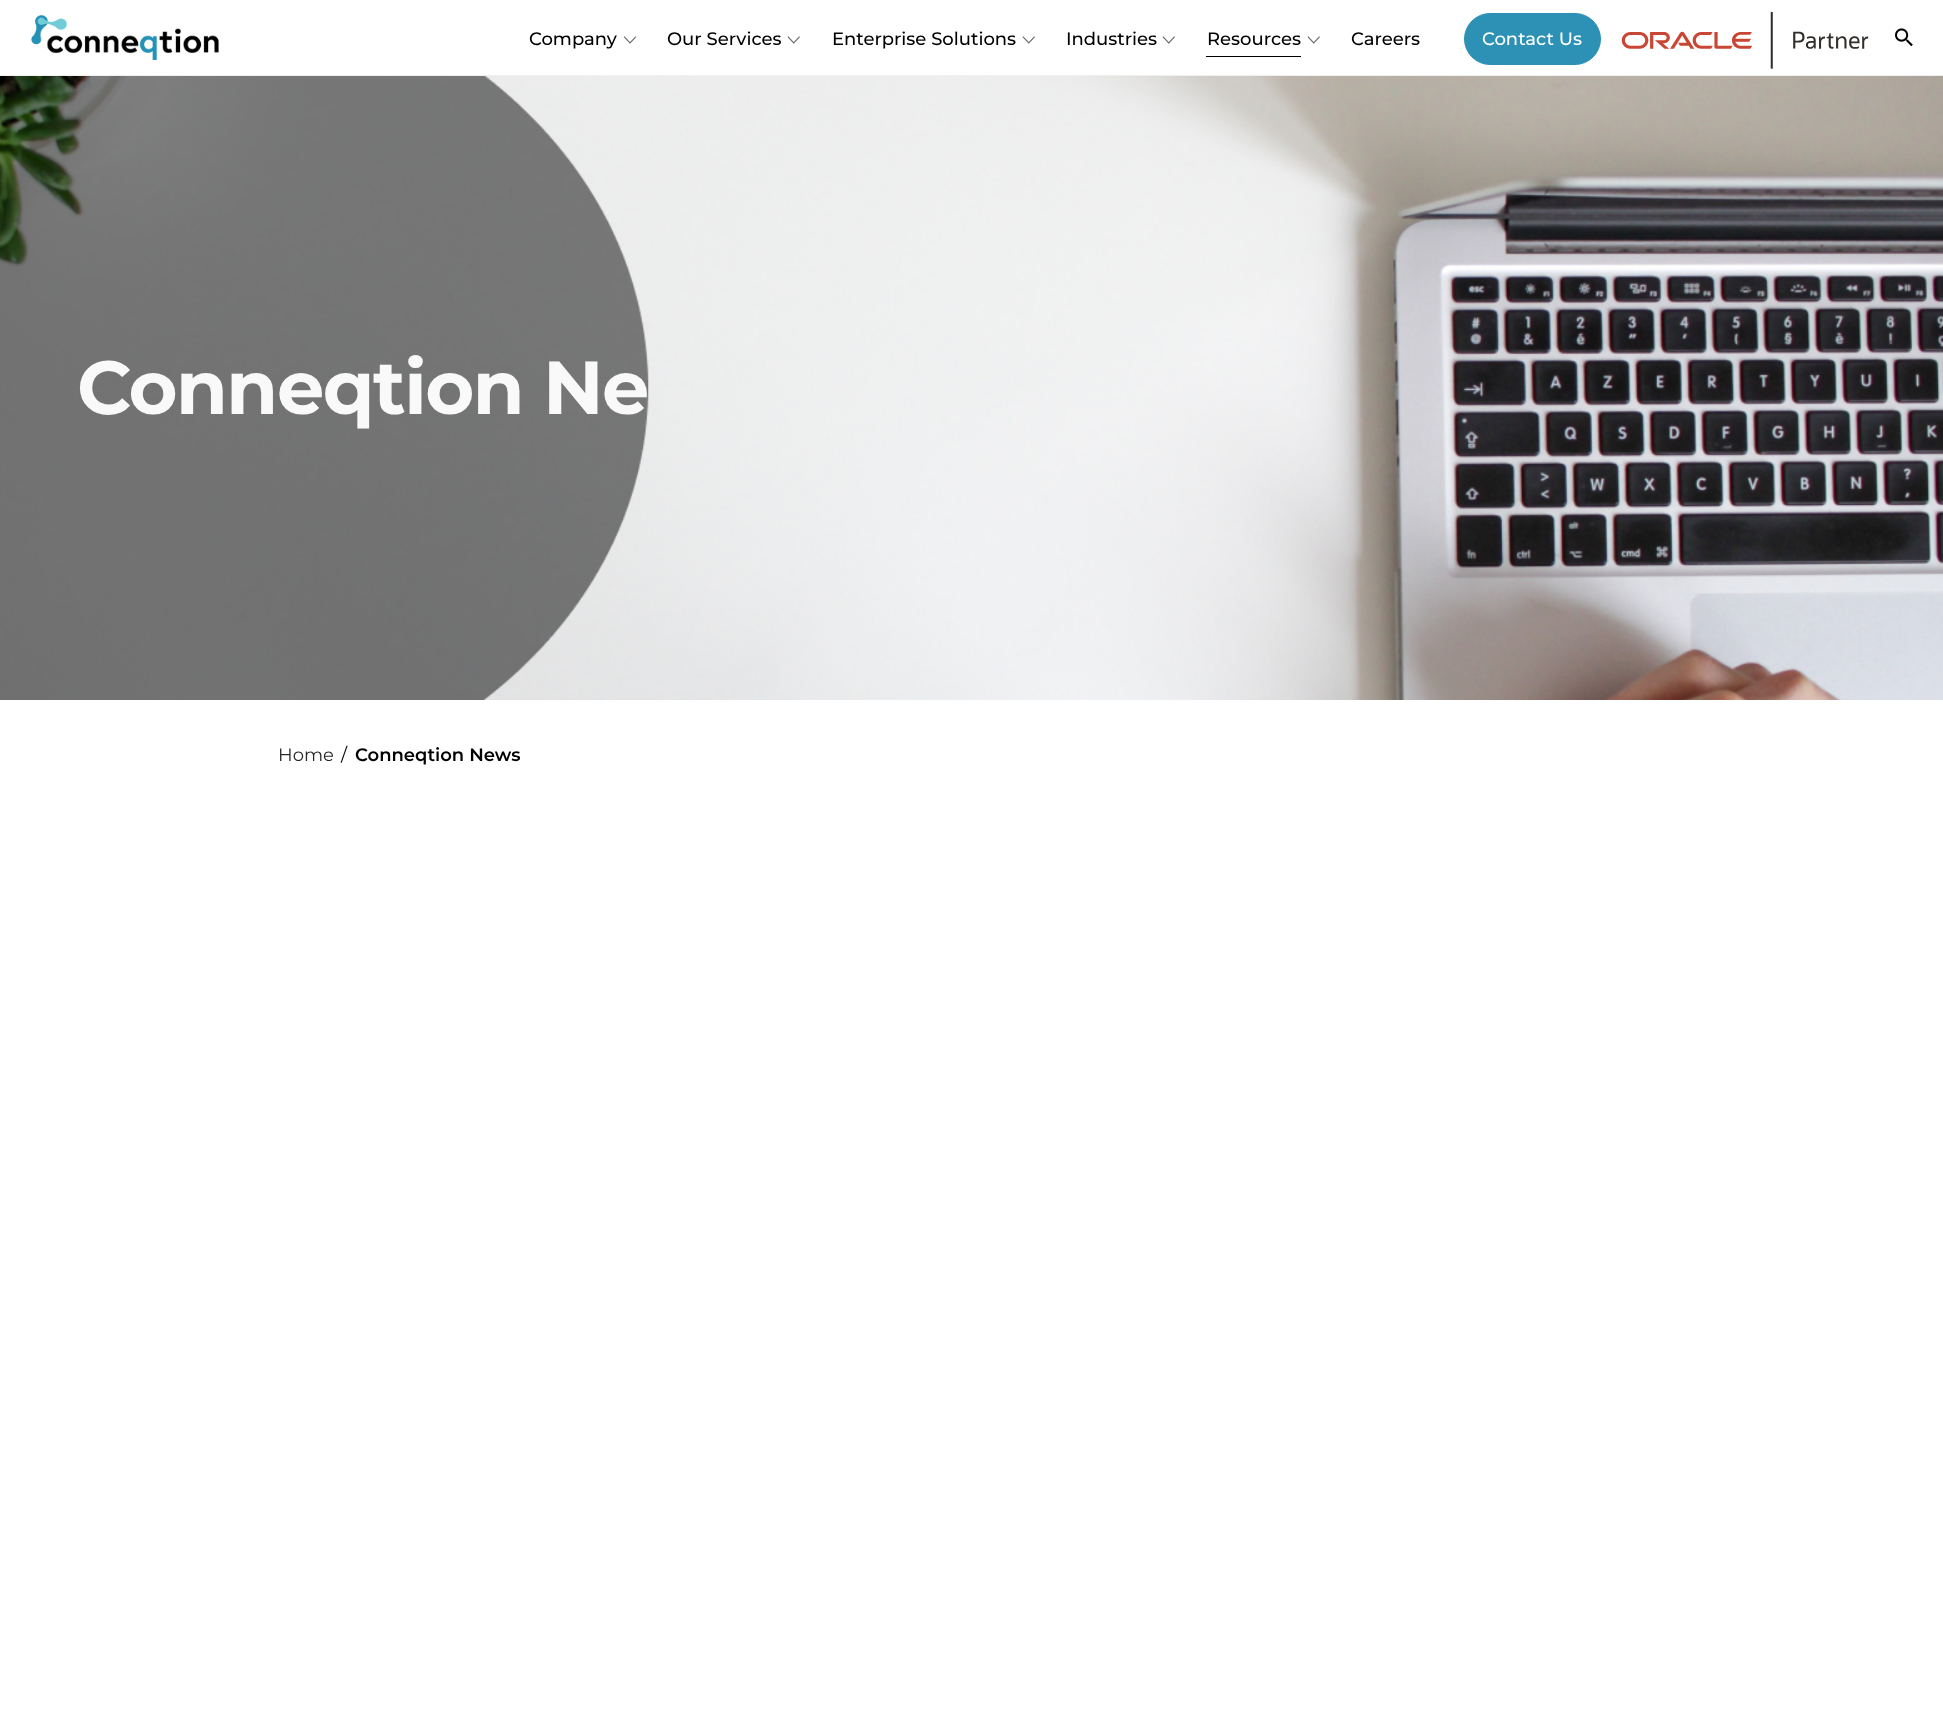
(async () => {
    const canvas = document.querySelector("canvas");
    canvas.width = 1943;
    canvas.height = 1727;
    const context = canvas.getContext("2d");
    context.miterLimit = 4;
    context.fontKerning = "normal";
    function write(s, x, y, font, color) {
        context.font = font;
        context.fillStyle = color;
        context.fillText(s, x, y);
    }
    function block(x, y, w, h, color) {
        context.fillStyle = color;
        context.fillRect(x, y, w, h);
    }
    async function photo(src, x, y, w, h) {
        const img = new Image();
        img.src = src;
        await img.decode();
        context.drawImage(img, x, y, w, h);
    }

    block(0, 0, 1943, 1727, "rgb(255, 255, 255)");
    block(0, 75, 1943, 1, "rgb(240, 240, 240)");
    await photo("media/1.png", 31, 15, 188, 45);
    write("Company", 529, 45, "500 18px Montserrat", "rgb(0, 0, 0)");
    await photo("media/2.png", 623, 36, 14, 8);
    write("Our Services", 667, 45, "500 18px Montserrat", "rgb(0, 0, 0)");
    await photo("media/3.png", 787, 36, 13, 8);
    write("Enterprise Solutions", 832, 45, "500 18px Montserrat", "rgb(0, 0, 0)");
    await photo("media/3.png", 1022, 36, 13, 8);
    write("Industries", 1066, 45, "500 18px Montserrat", "rgb(0, 0, 0)");
    await photo("media/3.png", 1162, 36, 13, 8);
    write("Resources", 1207, 45, "500 18px Montserrat", "rgb(0, 0, 0)");
    block(1206, 56, 95, 1, "rgb(0, 0, 0)");
    await photo("media/3.png", 1307, 36, 13, 8);
    write("Careers", 1351, 45, "500 18px Montserrat", "rgb(0, 0, 0)");
    context.fillStyle = "rgb(45, 145, 181)";
    context.beginPath();
    context.roundRect(1464.5, 13.5, 136, 51, 25.5);
    context.fill();
    context.strokeStyle = "rgb(45, 145, 181)";
    context.stroke();
    write("Contact Us", 1482, 45, "500 18px Montserrat", "rgb(255, 255, 255)");
    await photo("media/4.png", 1621, 11, 248, 58);
    await photo("media/5.png", 1895, 28, 18, 19);
    await photo("media/6.png", 0, 76, 1943, 624);
    context.letterSpacing = "-1.5px";
    write("Conneqtion Ne", 77, 414, "bold 75px Montserrat", "rgb(249, 249, 249)");
    context.letterSpacing = "0px";
    write("Home", 278, 761, "18px Montserrat", "rgb(40, 40, 40)");
    write("/", 341, 761, "18px Montserrat", "rgb(0, 0, 0)");
    write("Conneqtion News", 355, 761, "600 18px Montserrat", "rgb(0, 0, 0)");
})();
